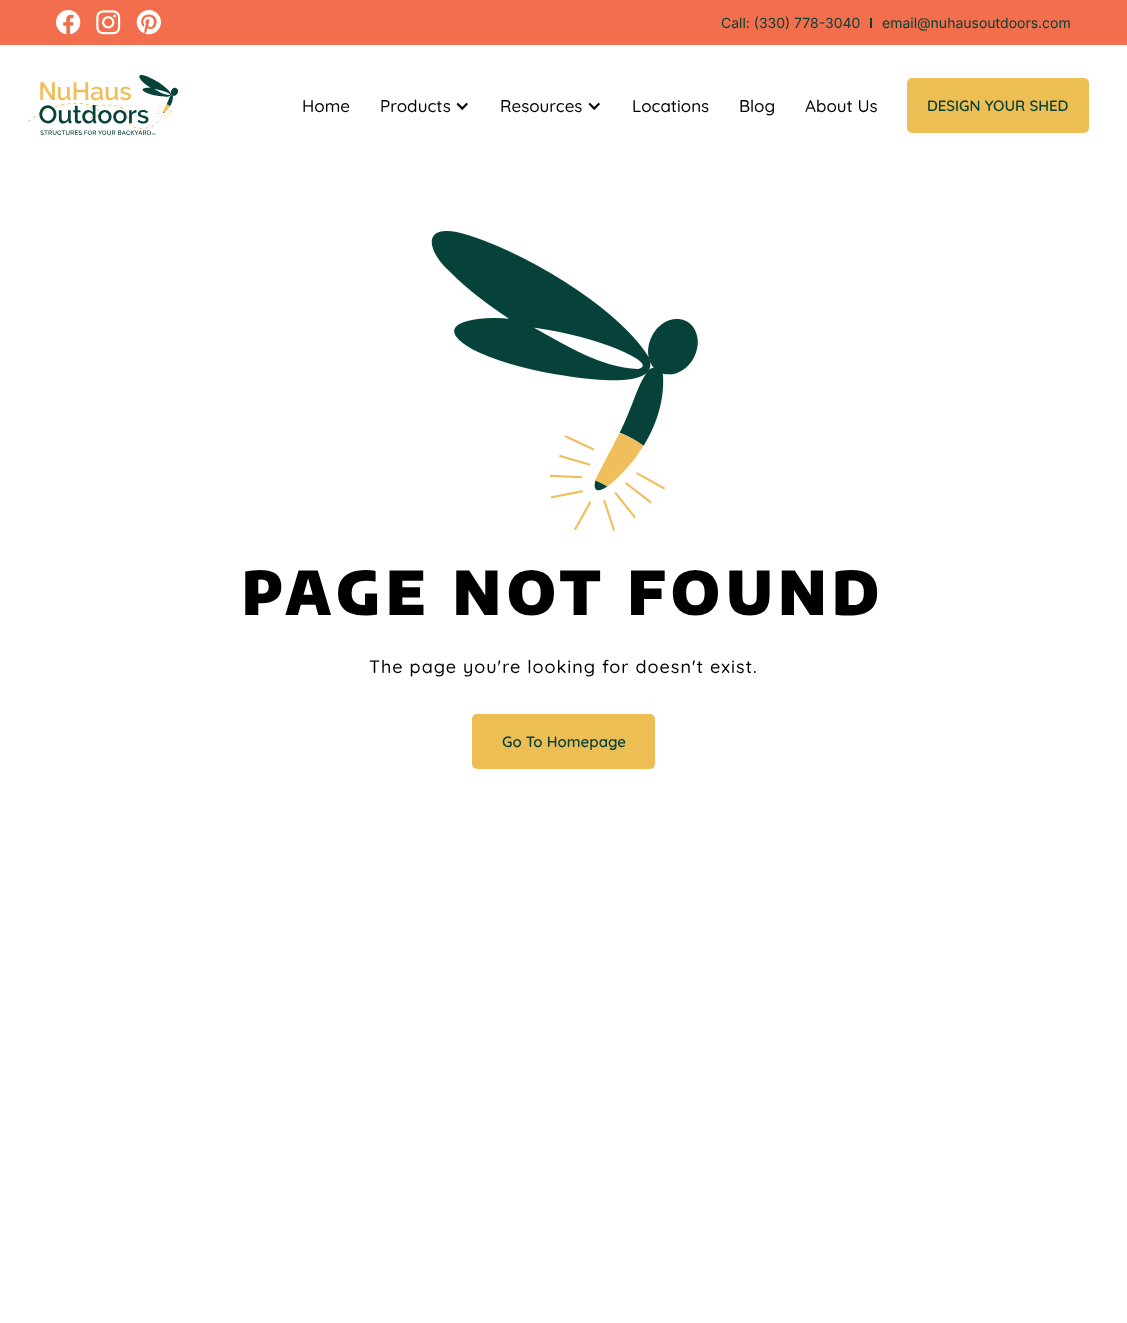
(async () => {
    const canvas = document.querySelector("canvas");
    canvas.width = 1127;
    canvas.height = 1323;
    const context = canvas.getContext("2d");
    context.miterLimit = 4;
    context.fontKerning = "normal";
    function write(s, x, y, font, color) {
        context.font = font;
        context.fillStyle = color;
        context.fillText(s, x, y);
    }
    function block(x, y, w, h, color) {
        context.fillStyle = color;
        context.fillRect(x, y, w, h);
    }
    function card(x, y, w, h, r, color) {
        context.fillStyle = color;
        context.beginPath();
        context.roundRect(x, y, w, h, r);
        context.fill();
    }
    async function photo(src, x, y, w, h) {
        const img = new Image();
        img.src = src;
        await img.decode();
        context.drawImage(img, x, y, w, h);
    }

    block(0, 0, 1127, 1323, "rgb(255, 255, 255)");
    block(0, 0, 1127, 45, "rgb(243, 110, 76)");
    await photo("media/1.png", 56, 10, 25, 25);
    await photo("media/2.png", 96, 10, 25, 25);
    await photo("media/3.png", 136, 10, 25, 25);
    write("Call: (330) 778-3040", 721, 28, "14px Inter", "rgb(7, 66, 58)");
    block(870, 18, 2, 10, "rgb(7, 66, 58)");
    write("email@nuhausoutdoors.com", 882, 28, "14px Inter", "rgb(7, 66, 58)");
    await photo("media/4.png", 28, 75, 150, 60);
    write("Home", 302, 112, "500 17px Quicksand", "rgb(0, 0, 0)");
    write("Products", 380, 112, "500 17px Quicksand", "rgb(0, 0, 0)");
    await photo("media/5.png", 456, 102, 12, 9);
    write("Resources", 500, 112, "500 17px Quicksand", "rgb(0, 0, 0)");
    await photo("media/5.png", 588, 102, 12, 9);
    write("Locations", 632, 112, "500 17px Quicksand", "rgb(0, 0, 0)");
    write("Blog", 739, 112, "500 17px Quicksand", "rgb(0, 0, 0)");
    write("About Us", 805, 112, "500 17px Quicksand", "rgb(0, 0, 0)");
    card(907, 78, 182, 55, 5, "rgb(237, 190, 83)");
    write("DESIGN YOUR SHED", 927, 111, "600 15px Quicksand", "rgb(7, 66, 58)");
    await photo("media/6.png", 431, 231, 267, 300);
    context.letterSpacing = "6px";
    write("PAGE NOT FOUND", 242, 615, "900 60px Encode Sans Condensed", "rgb(0, 0, 0)");
    context.letterSpacing = "1px";
    write("The page you're looking for doesn't exist.", 369, 673, "500 18px Quicksand", "rgb(0, 0, 0)");
    card(472, 714, 183, 55, 5, "rgb(237, 190, 83)");
    context.letterSpacing = "0px";
    write("Go To Homepage", 502, 747, "600 15px Quicksand", "rgb(7, 66, 58)");
})();
